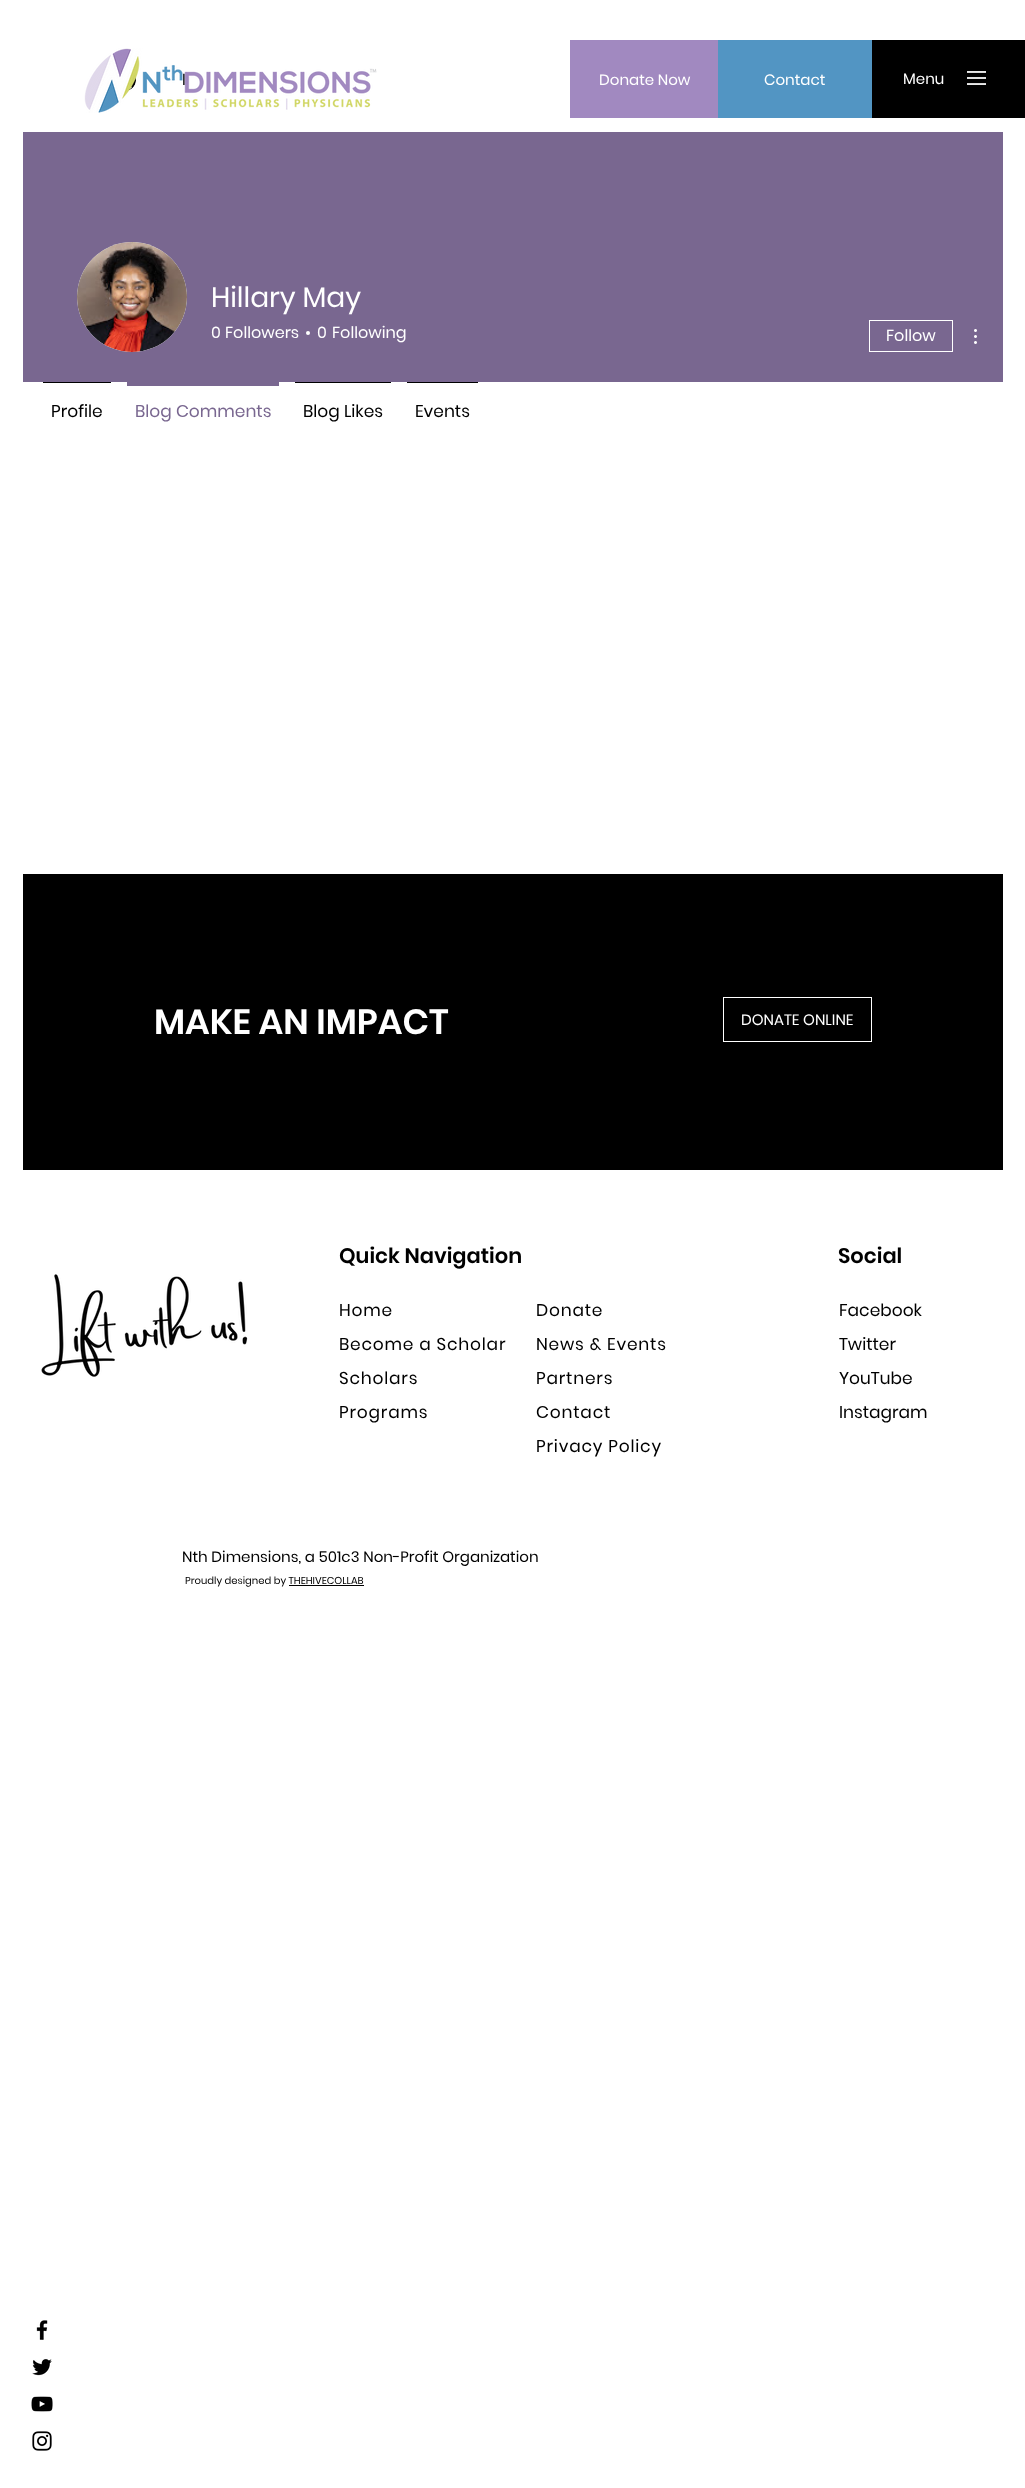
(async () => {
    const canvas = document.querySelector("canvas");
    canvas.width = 1025;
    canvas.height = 2488;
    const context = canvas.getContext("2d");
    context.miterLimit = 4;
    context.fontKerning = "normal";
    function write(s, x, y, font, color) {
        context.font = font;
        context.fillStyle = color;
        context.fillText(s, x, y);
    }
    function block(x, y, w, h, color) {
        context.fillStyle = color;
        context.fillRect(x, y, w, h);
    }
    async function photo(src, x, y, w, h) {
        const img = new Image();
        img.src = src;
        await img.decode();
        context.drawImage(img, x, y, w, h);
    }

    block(0, 0, 1025, 2488, "rgb(255, 255, 255)");
    await photo("media/1.png", 126, 74, 10, 17);
    write("I", 182, 85, "16px Poppins", "rgb(0, 0, 0)");
    await photo("media/2.png", 84, 48, 293, 65);
    block(570, 40, 148, 78, "rgb(161, 137, 192)");
    write("Donate Now", 599, 85, "15px Poppins", "rgb(255, 255, 255)");
    block(718, 40, 154, 78, "rgb(82, 149, 195)");
    write("Contact", 764, 85, "15px Poppins", "rgb(255, 255, 255)");
    block(872, 40, 153, 78, "rgb(0, 0, 0)");
    write("Menu", 903, 84, "15px Poppins", "rgb(255, 255, 255)");
    await photo("media/3.png", 967, 71, 19, 14);
    block(23, 132, 980, 250, "rgb(121, 103, 144)");
    context.fillStyle = "rgb(216, 216, 216)";
    context.beginPath();
    context.arc(132, 297, 55, 0, Math.PI * 2);
    context.fill();
    await photo("media/4.png", 77, 242, 110, 110);
    write("Hillary May", 211, 307, "28px Poppins", "rgb(255, 255, 255)");
    write("0", 211, 338, "16px Poppins", "rgb(255, 255, 255)");
    write("Followers", 225, 338, "16px Poppins", "rgb(255, 255, 255)");
    context.beginPath();
    context.arc(308, 333, 2, 0, Math.PI * 2);
    context.fill();
    write("0", 317, 338, "16px Poppins", "rgb(255, 255, 255)");
    write("Following", 332, 338, "16px Poppins", "rgb(255, 255, 255)");
    context.strokeStyle = "rgb(255, 255, 255)";
    context.strokeRect(869.5, 320.5, 83, 31);
    write("Follow", 886, 341, "16px Poppins", "rgb(255, 255, 255)");
    await photo("media/5.png", 974, 329, 3, 15);
    block(43, 382, 68, 1, "rgb(0, 0, 0)");
    write("Profile", 51, 417, "17px Poppins", "rgb(0, 0, 0)");
    block(127, 382, 152, 4, "rgb(121, 103, 144)");
    write("Blog Comments", 135, 417, "17px Poppins", "rgb(121, 103, 144)");
    block(295, 382, 96, 1, "rgb(0, 0, 0)");
    write("Blog Likes", 303, 417, "17px Poppins", "rgb(0, 0, 0)");
    block(407, 382, 71, 1, "rgb(0, 0, 0)");
    write("Events", 415, 417, "17px Poppins", "rgb(0, 0, 0)");
    block(23, 874, 980, 296, "rgb(0, 0, 0)");
    write("MAKE AN IMPACT", 154, 1034, "600 35px Poppins", "rgb(255, 255, 255)");
    context.strokeRect(723.5, 997.5, 148, 44);
    write("DONATE ONLINE", 741, 1025, "15px Poppins", "rgb(255, 255, 255)");
    await photo("media/6.png", 41, 1274, 207, 103);
    write("Quick Navigation", 339, 1263, "600 21px Poppins", "rgb(0, 0, 0)");
    context.letterSpacing = "0.8px";
    write("Home", 339, 1316, "17px Poppins", "rgb(0, 0, 0)");
    write("Become a Scholar", 339, 1350, "17px Poppins", "rgb(0, 0, 0)");
    write("Scholars", 339, 1384, "17px Poppins", "rgb(0, 0, 0)");
    write("Programs", 339, 1418, "17px Poppins", "rgb(0, 0, 0)");
    write("Donate", 536, 1316, "17px Poppins", "rgb(0, 0, 0)");
    write("News & Events", 536, 1350, "17px Poppins", "rgb(0, 0, 0)");
    write("Partners", 536, 1384, "17px Poppins", "rgb(0, 0, 0)");
    write("Contact", 536, 1418, "17px Poppins", "rgb(0, 0, 0)");
    write("Privacy Policy", 536, 1452, "17px Poppins", "rgb(0, 0, 0)");
    context.letterSpacing = "0px";
    write("Social", 838, 1263, "600 21px Poppins", "rgb(0, 0, 0)");
    write("Facebook", 839, 1316, "17px Poppins", "rgb(0, 0, 0)");
    write("Twitter", 839, 1350, "17px Poppins", "rgb(0, 0, 0)");
    write("YouTube", 839, 1384, "17px Poppins", "rgb(0, 0, 0)");
    write("Instagram", 839, 1418, "17px Poppins", "rgb(0, 0, 0)");
    write("Nth Dimensions, a 501c3 Non-Profit Organization", 182, 1562, "15px Poppins", "rgb(0, 0, 0)");
    write("Proudly designed by THEHIVECOLLAB", 185, 1584, "10px Poppins", "rgb(0, 0, 0)");
    block(289, 1585, 75, 1, "rgb(0, 0, 0)");
    await photo("media/7.png", 36, 2320, 12, 20);
    await photo("media/8.png", 32, 2359, 20, 17);
    await photo("media/9.png", 31, 2396, 22, 16);
    await photo("media/10.png", 32, 2431, 20, 20);
})();
